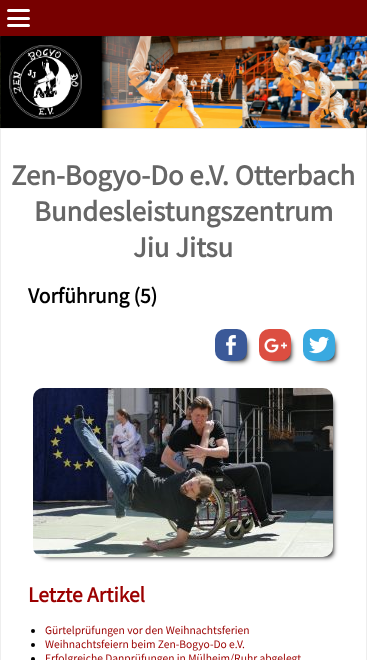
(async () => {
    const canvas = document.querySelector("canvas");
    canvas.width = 367;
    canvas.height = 660;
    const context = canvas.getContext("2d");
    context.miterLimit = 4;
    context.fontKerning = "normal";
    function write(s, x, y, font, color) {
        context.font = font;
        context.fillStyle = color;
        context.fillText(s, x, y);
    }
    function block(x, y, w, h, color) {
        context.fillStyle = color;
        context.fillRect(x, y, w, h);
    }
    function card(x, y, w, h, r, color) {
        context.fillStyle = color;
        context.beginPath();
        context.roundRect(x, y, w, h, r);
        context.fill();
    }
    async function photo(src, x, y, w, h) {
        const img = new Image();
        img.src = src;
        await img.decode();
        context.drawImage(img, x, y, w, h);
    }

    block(0, 0, 367, 660, "rgb(255, 255, 255)");
    block(0, 0, 367, 36, "rgb(119, 0, 0)");
    card(7, 17, 23, 3, 1.5, "rgb(255, 255, 255)");
    card(7, 9, 23, 3, 1.5, "rgb(255, 255, 255)");
    card(7, 24, 23, 3, 1.5, "rgb(255, 255, 255)");
    await photo("media/1.png", 0, 36, 367, 92);
    await photo("media/2.png", 0, 36, 367, 92);
    await photo("media/3.png", 0, 36, 367, 92);
    await photo("media/4.png", 0, 36, 367, 92);
    await photo("media/5.png", 0, 36, 367, 92);
    await photo("media/6.png", 9, 45, 73, 74);
    context.strokeStyle = "rgb(238, 238, 238)";
    context.strokeRect(0.5, 128.5, 366, 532);
    write("Zen-Bogyo-Do e.V. Otterbach", 11, 185, "bold 28.75px Source Sans Pro", "rgb(102, 102, 102)");
    write("Bundesleistungszentrum", 34, 221, "bold 28.75px Source Sans Pro", "rgb(102, 102, 102)");
    write("Jiu Jitsu", 133, 257, "bold 28.75px Source Sans Pro", "rgb(102, 102, 102)");
    write("Vorführung (5)", 28, 303, "bold 21.5px Source Sans Pro", "rgb(0, 0, 0)");
    context.filter = "blur(2.5px)";
    context.beginPath();
    context.roundRect(225, 339, 22, 22, 5);
    context.fill();
    context.filter = "none";
    await photo("media/7.png", 215, 329, 32, 32);
    context.filter = "blur(2.5px)";
    context.beginPath();
    context.roundRect(269, 339, 22, 22, 5);
    context.fill();
    context.filter = "none";
    await photo("media/8.png", 259, 329, 32, 32);
    context.filter = "blur(2.5px)";
    context.beginPath();
    context.roundRect(313, 339, 22, 22, 5);
    context.fill();
    context.filter = "none";
    await photo("media/9.png", 303, 329, 32, 32);
    context.filter = "blur(2.5px)";
    context.beginPath();
    context.roundRect(43, 398, 290, 159, 5);
    context.fill();
    context.filter = "none";
    await photo("media/10.png", 33, 388, 300, 169);
    write("Letzte Artikel", 28, 602, "bold 21.5px Source Sans Pro", "rgb(155, 0, 0)");
    context.fillStyle = "rgb(0, 0, 0)";
    context.beginPath();
    context.arc(33, 631, 2, 0, Math.PI * 2);
    context.fill();
    write("Gürtelprüfungen vor den Weihnachtsferien", 45, 634, "11.5px Source Sans Pro", "rgb(155, 0, 0)");
    context.fillStyle = "rgb(0, 0, 0)";
    context.beginPath();
    context.arc(33, 645, 2, 0, Math.PI * 2);
    context.fill();
    write("Weihnachtsfeiern beim Zen-Bogyo-Do e.V.", 45, 648, "11.5px Source Sans Pro", "rgb(155, 0, 0)");
    context.fillStyle = "rgb(0, 0, 0)";
    context.beginPath();
    context.arc(33, 659, 2, 0, Math.PI * 2);
    context.fill();
    write("Erfolgreiche Danprüfungen in Mülheim/Ruhr abgelegt", 45, 662, "11.5px Source Sans Pro", "rgb(155, 0, 0)");
})();
